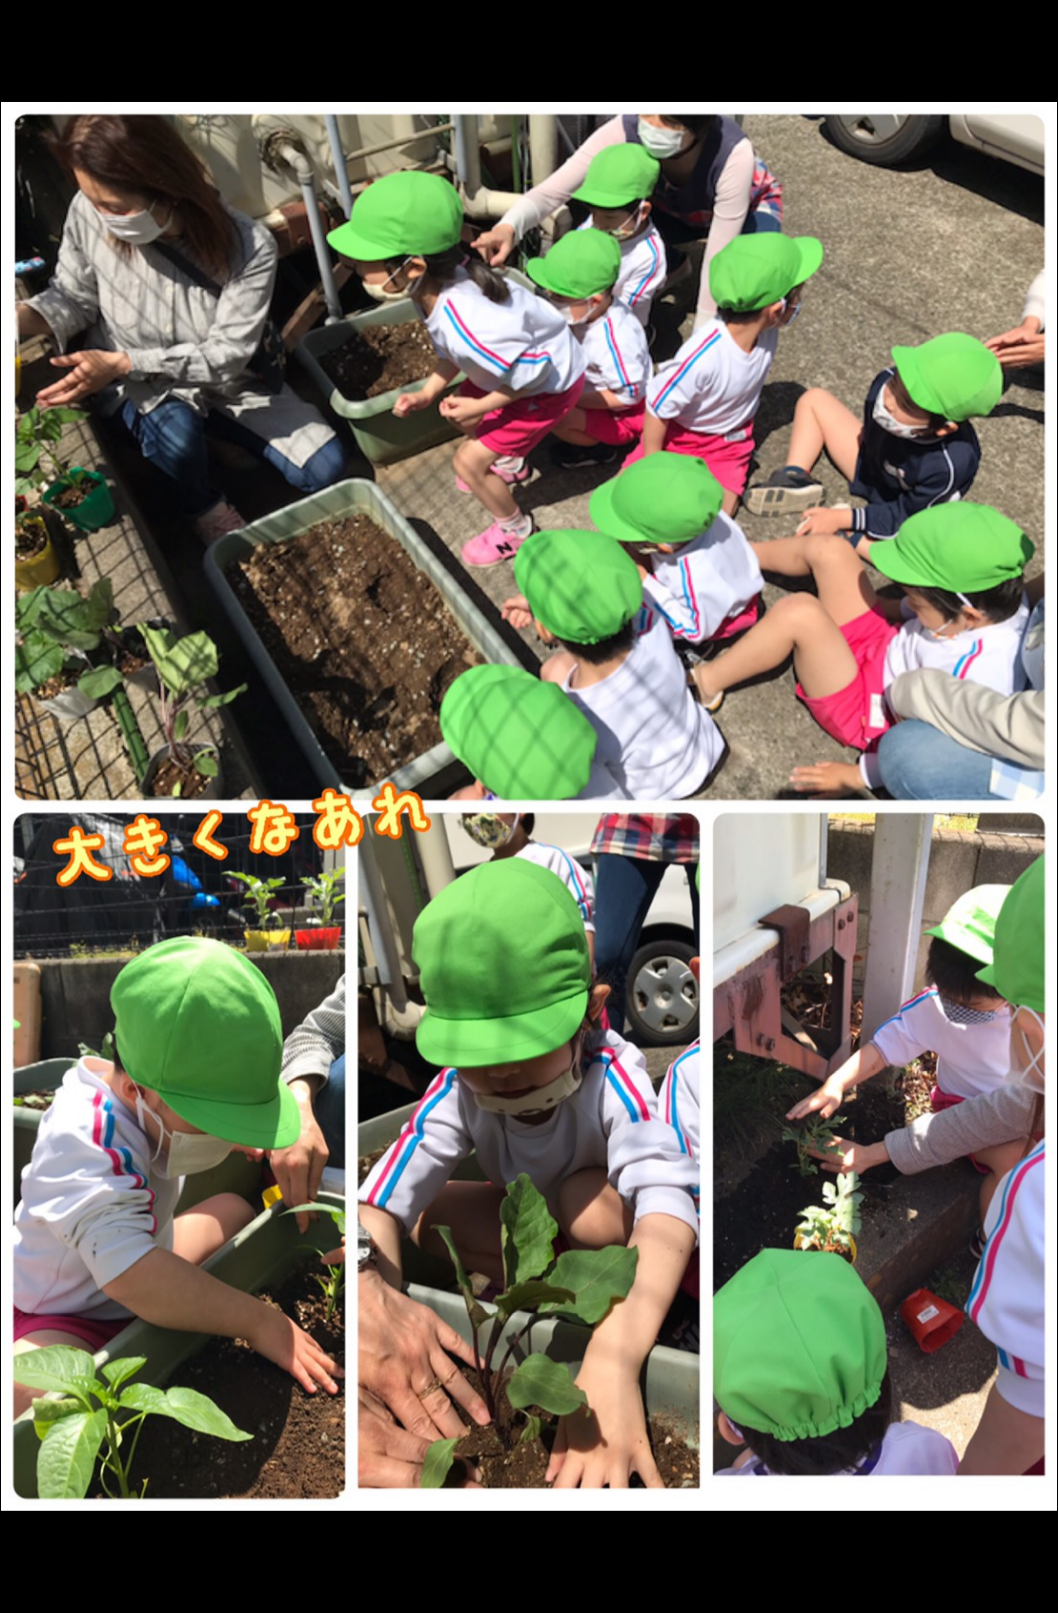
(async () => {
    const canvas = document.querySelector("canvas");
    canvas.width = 1058;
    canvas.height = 1613;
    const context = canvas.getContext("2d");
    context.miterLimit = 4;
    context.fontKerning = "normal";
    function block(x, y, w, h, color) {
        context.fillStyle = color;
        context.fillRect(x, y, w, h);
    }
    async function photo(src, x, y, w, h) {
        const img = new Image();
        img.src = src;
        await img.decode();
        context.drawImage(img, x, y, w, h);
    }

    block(0, 0, 1058, 1613, "rgb(0, 0, 0)");
    await photo("media/1.png", 1, 102, 1056, 1409);
})();
